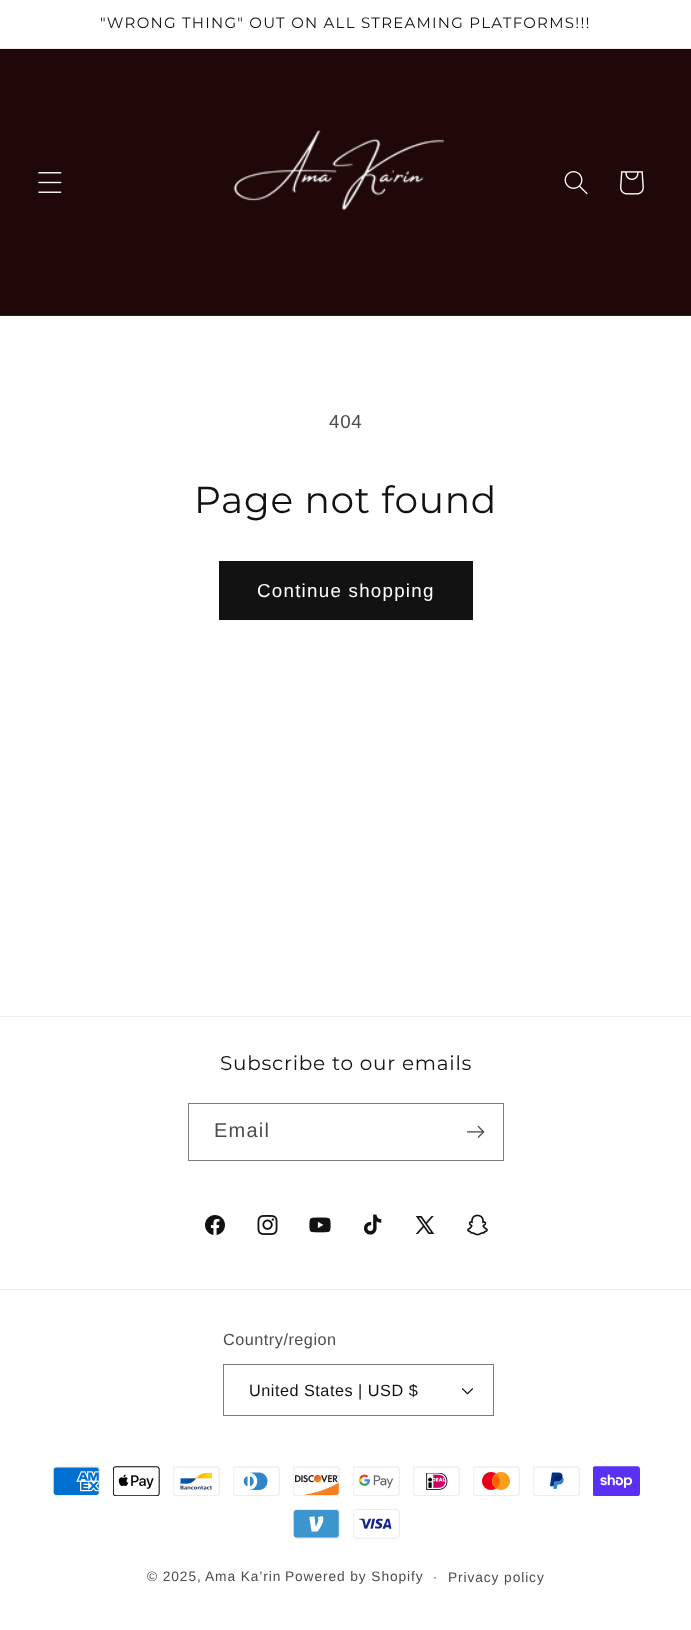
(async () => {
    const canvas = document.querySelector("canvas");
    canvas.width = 691;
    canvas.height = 1630;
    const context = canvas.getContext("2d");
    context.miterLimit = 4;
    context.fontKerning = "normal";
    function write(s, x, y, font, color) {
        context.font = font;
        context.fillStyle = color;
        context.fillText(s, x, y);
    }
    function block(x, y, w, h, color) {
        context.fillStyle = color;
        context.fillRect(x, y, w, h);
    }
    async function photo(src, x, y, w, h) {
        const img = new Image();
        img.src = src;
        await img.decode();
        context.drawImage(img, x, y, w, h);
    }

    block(0, 0, 691, 1630, "rgb(255, 255, 255)");
    block(0, 48, 691, 1, "rgb(236, 236, 236)");
    context.letterSpacing = "1.25px";
    write("\"WRONG THING\" OUT ON ALL STREAMING PLATFORMS!!!", 100, 28, "15px Montserrat", "rgb(18, 18, 18)");
    block(0, 49, 691, 266, "rgb(33, 8, 8)");
    block(0, 315, 691, 1, "rgb(51, 28, 28)");
    await photo("media/1.png", 38, 172, 24, 21);
    await photo("media/2.png", 233, 130, 211, 81);
    await photo("media/3.png", 564, 171, 24, 24);
    await photo("media/4.png", 620, 171, 24, 24);
    context.letterSpacing = "0.75px";
    write("404", 329, 428, "18.75px Liberation Sans", "rgb(77, 77, 77)");
    write("Page not found", 194, 513, "37.5px Montserrat", "rgb(18, 18, 18)");
    block(219, 561, 254, 59, "rgb(18, 18, 18)");
    context.letterSpacing = "1.25px";
    write("Continue shopping", 257, 597, "18.75px Liberation Sans", "rgb(255, 255, 255)");
    block(0, 1016, 691, 1, "rgb(236, 236, 236)");
    context.letterSpacing = "0.75px";
    write("Subscribe to our emails", 220, 1070, "20px Montserrat", "rgb(18, 18, 18)");
    context.strokeStyle = "rgb(125, 125, 125)";
    context.strokeRect(188.5, 1103.5, 315, 57);
    context.letterSpacing = "1.25px";
    write("Email", 214, 1137, "20px Liberation Sans", "rgb(77, 77, 77)");
    await photo("media/5.png", 467, 1125, 18, 13);
    await photo("media/6.png", 205, 1215, 20, 20);
    await photo("media/7.png", 257, 1215, 21, 20);
    await photo("media/8.png", 309, 1217, 22, 16);
    await photo("media/9.png", 363, 1214, 19, 21);
    await photo("media/10.png", 415, 1216, 20, 18);
    await photo("media/11.png", 467, 1214, 21, 22);
    block(0, 1289, 691, 1, "rgb(236, 236, 236)");
    context.letterSpacing = "0.5px";
    write("Country/region", 223, 1345, "16.25px Liberation Sans", "rgb(77, 77, 77)");
    await photo("media/12.png", 461, 1388, 13, 7);
    context.strokeRect(223.5, 1364.5, 270, 51);
    write("United States | USD $", 249, 1396, "16.25px Liberation Sans", "rgb(18, 18, 18)");
    await photo("media/13.png", 53, 1466, 47, 30);
    await photo("media/14.png", 113, 1466, 47, 30);
    await photo("media/15.png", 173, 1466, 47, 30);
    await photo("media/16.png", 233, 1466, 47, 30);
    await photo("media/17.png", 293, 1466, 47, 30);
    await photo("media/18.png", 353, 1466, 47, 30);
    await photo("media/19.png", 413, 1466, 47, 30);
    await photo("media/20.png", 473, 1466, 47, 30);
    await photo("media/21.png", 533, 1466, 47, 30);
    await photo("media/22.png", 593, 1466, 47, 30);
    await photo("media/23.png", 293, 1509, 47, 30);
    await photo("media/24.png", 353, 1509, 47, 30);
    context.letterSpacing = "0.9px";
    write("© 2025,", 147, 1581, "13.75px Liberation Sans", "rgb(77, 77, 77)");
    write("Ama Ka’rin", 205, 1581, "13.75px Liberation Sans", "rgb(77, 77, 77)");
    write("Powered by Shopify", 285, 1581, "13.75px Liberation Sans", "rgb(77, 77, 77)");
    write("·", 433, 1581, "12px Liberation Sans", "rgb(77, 77, 77)");
    write("Privacy policy", 448, 1582, "13.75px Liberation Sans", "rgb(77, 77, 77)");
})();
